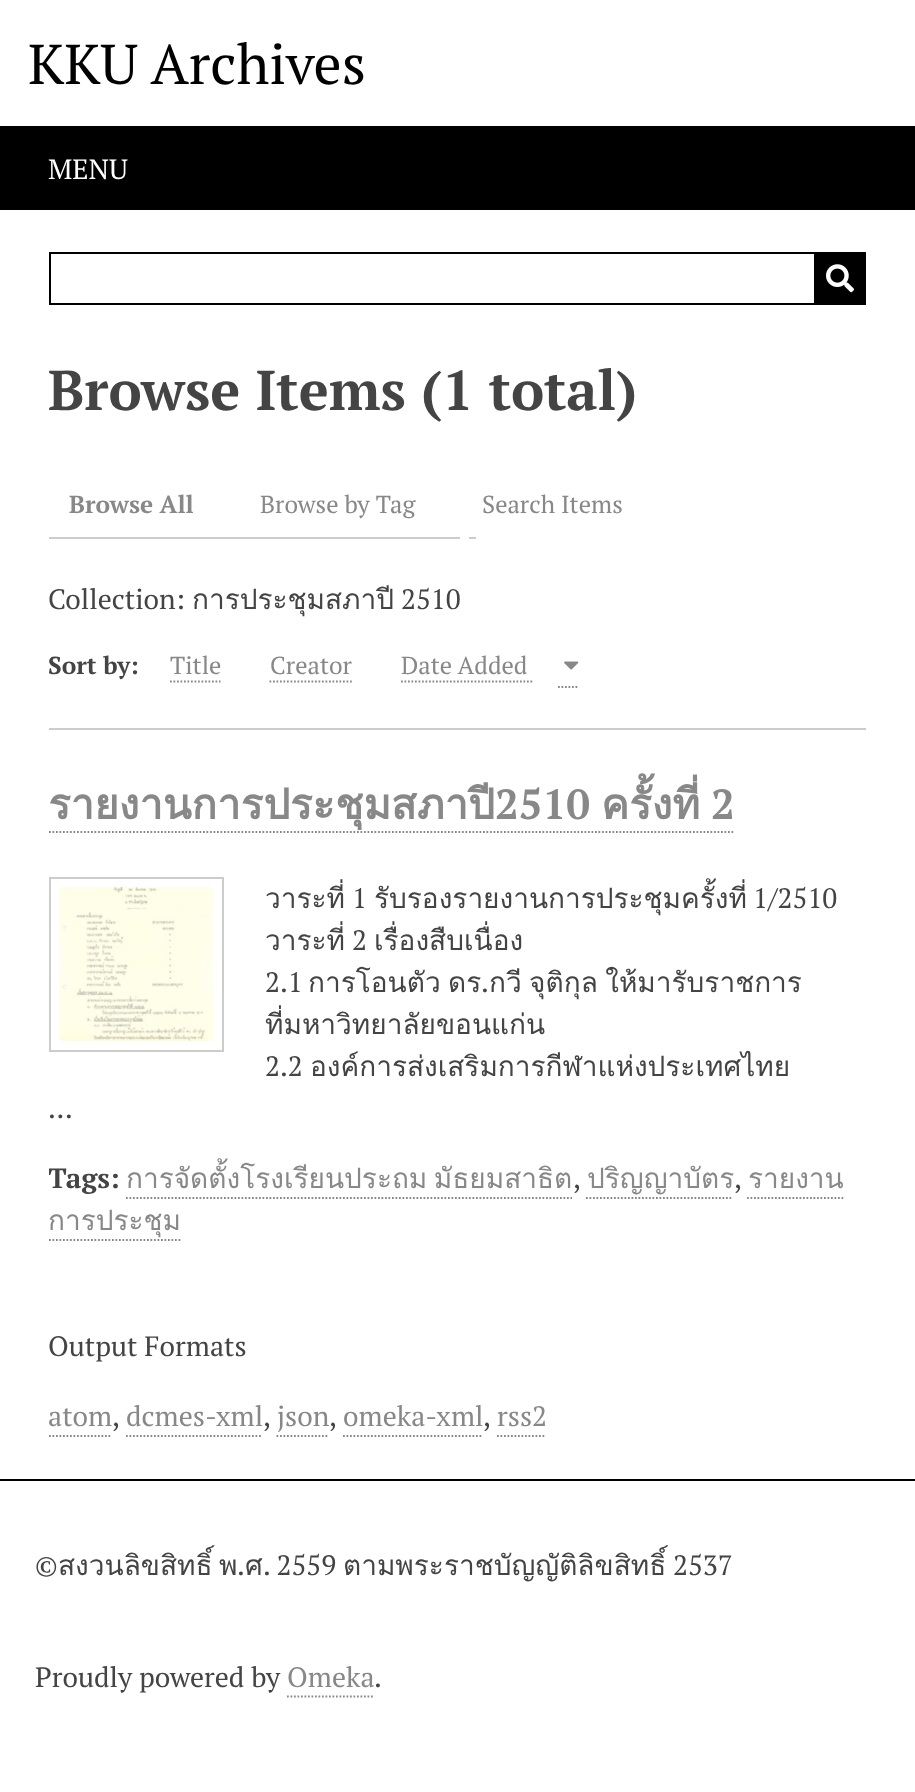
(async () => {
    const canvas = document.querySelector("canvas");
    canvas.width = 915;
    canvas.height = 1792;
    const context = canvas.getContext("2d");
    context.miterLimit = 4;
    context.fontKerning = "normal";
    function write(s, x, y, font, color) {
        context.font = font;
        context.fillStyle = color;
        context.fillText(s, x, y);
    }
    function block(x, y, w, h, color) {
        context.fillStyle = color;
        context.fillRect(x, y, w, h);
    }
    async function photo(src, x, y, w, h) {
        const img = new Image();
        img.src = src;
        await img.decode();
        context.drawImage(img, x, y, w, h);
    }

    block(0, 0, 915, 1792, "rgb(255, 255, 255)");
    write("KKU Archives", 28, 84, "56px PT Serif", "rgb(0, 0, 0)");
    block(0, 126, 915, 84, "rgb(0, 0, 0)");
    write("MENU", 48, 179, "28px PT Serif", "rgb(255, 255, 255)");
    context.strokeStyle = "rgb(0, 0, 0)";
    context.lineWidth = 2;
    context.strokeRect(50, 253, 815, 51);
    block(814, 254, 50, 49, "rgb(0, 0, 0)");
    await photo("media/1.png", 826, 264, 28, 29);
    write("Browse Items (1 total)", 48, 410, "bold 56px PT Serif", "rgb(68, 68, 68)");
    write("Browse All", 69, 513, "bold 24.5px PT Serif", "rgb(136, 136, 136)");
    write("Browse by Tag", 260, 513, "24.5px PT Serif", "rgb(136, 136, 136)");
    write("Search Items", 482, 513, "24.5px PT Serif", "rgb(136, 136, 136)");
    write("Collection:", 48, 609, "28px PT Serif", "rgb(68, 68, 68)");
    block(49, 537, 411, 2, "rgb(204, 204, 204)");
    write("การประชุมสภาปี", 192, 609, "28px Loma", "rgb(68, 68, 68)");
    write("2510", 401, 609, "28px PT Serif", "rgb(68, 68, 68)");
    block(469, 537, 7, 2, "rgb(204, 204, 204)");
    write("Sort by:", 48, 674, "bold 24.5px PT Serif", "rgb(68, 68, 68)");
    write("Title", 170, 674, "24.5px PT Serif", "rgb(136, 136, 136)");
    context.beginPath();
    context.moveTo(170, 681.5);
    context.lineTo(220.5, 681.5);
    context.strokeStyle = "rgb(136, 136, 136)";
    context.lineWidth = 1.8;
    context.setLineDash([1.75, 1.75]);
    context.stroke();
    write("Creator", 270, 674, "24.5px PT Serif", "rgb(136, 136, 136)");
    context.beginPath();
    context.moveTo(269.5, 681.5);
    context.lineTo(352, 681.5);
    context.stroke();
    context.beginPath();
    context.moveTo(401, 681.5);
    context.lineTo(534, 681.5);
    context.stroke();
    context.beginPath();
    context.moveTo(558, 687);
    context.lineTo(579, 687);
    context.stroke();
    write("Date Added", 401, 674, "24.5px PT Serif", "rgb(136, 136, 136)");
    await photo("media/2.png", 564, 661, 15, 9);
    block(49, 728, 817, 2, "rgb(204, 204, 204)");
    write("รายงานการประชุมสภาปี", 48, 819, "bold 42px Loma", "rgb(136, 136, 136)");
    context.beginPath();
    context.moveTo(49, 832);
    context.lineTo(735, 832);
    context.stroke();
    write("2510", 495, 819, "bold 42px PT Serif", "rgb(136, 136, 136)");
    write("ครั้งที่", 601, 819, "bold 42px Loma", "rgb(136, 136, 136)");
    write("2", 711, 819, "bold 42px PT Serif", "rgb(136, 136, 136)");
    context.strokeStyle = "rgb(204, 204, 204)";
    context.lineWidth = 2;
    context.setLineDash([]);
    context.strokeRect(50, 878, 173, 173);
    await photo("media/3.png", 59, 887, 155, 155);
    write("วาระที่", 265, 908, "28px Loma", "rgb(68, 68, 68)");
    write("1", 352, 908, "28px PT Serif", "rgb(68, 68, 68)");
    write("รับรองรายงานการประชุมครั้งที่", 374, 908, "28px Loma", "rgb(68, 68, 68)");
    write("1/2510", 753, 908, "28px PT Serif", "rgb(68, 68, 68)");
    write("วาระที่", 265, 950, "28px Loma", "rgb(68, 68, 68)");
    write("2", 352, 950, "28px PT Serif", "rgb(68, 68, 68)");
    write("เรื่องสืบเนื่อง", 374, 950, "28px Loma", "rgb(68, 68, 68)");
    write("2.1", 265, 992, "28px PT Serif", "rgb(68, 68, 68)");
    context.wordSpacing = "-2px";
    write("การโอนตัว ดร", 308, 992, "28px Loma", "rgb(68, 68, 68)");
    context.wordSpacing = "0px";
    write(".", 481, 992, "28px PT Serif", "rgb(68, 68, 68)");
    context.wordSpacing = "-2px";
    write("กวี จุติกุล ให้มารับราชการ", 489, 992, "28px Loma", "rgb(68, 68, 68)");
    context.wordSpacing = "0px";
    write("ที่มหาวิทยาลัยขอนแก่น", 265, 1034, "28px Loma", "rgb(68, 68, 68)");
    write("2.2", 265, 1076, "28px PT Serif", "rgb(68, 68, 68)");
    write("องค์การส่งเสริมการกีฬาแห่งประเทศไทย", 310, 1076, "28px Loma", "rgb(68, 68, 68)");
    write("…", 48, 1118, "28px PT Serif", "rgb(68, 68, 68)");
    context.save();
    context.beginPath();
    context.rect(49, 730, 817, 595);
    context.clip();
    write("Tags:", 48, 1188, "bold 28px PT Serif", "rgb(68, 68, 68)");
    context.restore();
    context.wordSpacing = "-3px";
    write("การจัดตั้งโรงเรียนประถม มัธยมสาธิต", 126, 1188, "28px Loma", "rgb(136, 136, 136)");
    context.beginPath();
    context.moveTo(126, 1198);
    context.lineTo(572, 1198);
    context.strokeStyle = "rgb(136, 136, 136)";
    context.lineWidth = 1.8;
    context.setLineDash([1.75, 1.75]);
    context.stroke();
    context.wordSpacing = "0px";
    write(",", 573, 1188, "28px PT Serif", "rgb(68, 68, 68)");
    write("ปริญญาบัตร", 587, 1188, "28px Loma", "rgb(136, 136, 136)");
    context.beginPath();
    context.moveTo(586, 1198);
    context.lineTo(733, 1198);
    context.stroke();
    write(",", 734, 1188, "28px PT Serif", "rgb(68, 68, 68)");
    write("รายงาน", 748, 1188, "28px Loma", "rgb(136, 136, 136)");
    context.beginPath();
    context.moveTo(747, 1198);
    context.lineTo(843.5, 1198);
    context.stroke();
    write("การประชุม", 48, 1230, "28px Loma", "rgb(136, 136, 136)");
    context.beginPath();
    context.moveTo(49, 1240);
    context.lineTo(182, 1240);
    context.stroke();
    write("Output Formats", 48, 1356, "28px PT Serif", "rgb(68, 68, 68)");
    write("atom", 48, 1426, "28px PT Serif", "rgb(136, 136, 136)");
    context.beginPath();
    context.moveTo(49, 1436);
    context.lineTo(112, 1436);
    context.stroke();
    write(",", 112, 1426, "28px PT Serif", "rgb(68, 68, 68)");
    write("dcmes-xml", 126, 1426, "28px PT Serif", "rgb(136, 136, 136)");
    context.beginPath();
    context.moveTo(126, 1436);
    context.lineTo(262.5, 1436);
    context.stroke();
    write(",", 263, 1426, "28px PT Serif", "rgb(68, 68, 68)");
    write("json", 277, 1426, "28px PT Serif", "rgb(136, 136, 136)");
    context.beginPath();
    context.moveTo(276.5, 1436);
    context.lineTo(329, 1436);
    context.stroke();
    write(",", 329, 1426, "28px PT Serif", "rgb(68, 68, 68)");
    write("omeka-xml", 343, 1426, "28px PT Serif", "rgb(136, 136, 136)");
    context.beginPath();
    context.moveTo(343, 1436);
    context.lineTo(483, 1436);
    context.stroke();
    write(",", 483, 1426, "28px PT Serif", "rgb(68, 68, 68)");
    write("rss2", 497, 1426, "28px PT Serif", "rgb(136, 136, 136)");
    context.beginPath();
    context.moveTo(497, 1436);
    context.lineTo(546, 1436);
    context.stroke();
    block(0, 1479, 915, 2, "rgb(0, 0, 0)");
    write("©", 35, 1575, "28px PT Serif", "rgb(68, 68, 68)");
    write("สงวนลิขสิทธิ์", 58, 1575, "28px Loma", "rgb(68, 68, 68)");
    write("พ", 219, 1575, "28px Loma", "rgb(68, 68, 68)");
    write(".", 237, 1575, "28px PT Serif", "rgb(68, 68, 68)");
    write("ศ", 245, 1575, "28px Loma", "rgb(68, 68, 68)");
    write(". 2559", 263, 1575, "28px PT Serif", "rgb(68, 68, 68)");
    write("ตามพระราชบัญญัติลิขสิทธิ์", 343, 1575, "28px Loma", "rgb(68, 68, 68)");
    write("2537", 673, 1575, "28px PT Serif", "rgb(68, 68, 68)");
    write("Proudly powered by", 35, 1687, "28px PT Serif", "rgb(68, 68, 68)");
    write("Omeka", 287, 1687, "28px PT Serif", "rgb(136, 136, 136)");
    context.beginPath();
    context.moveTo(287, 1696.5);
    context.lineTo(374.5, 1696.5);
    context.stroke();
    write(".", 374, 1687, "28px PT Serif", "rgb(68, 68, 68)");
})();
